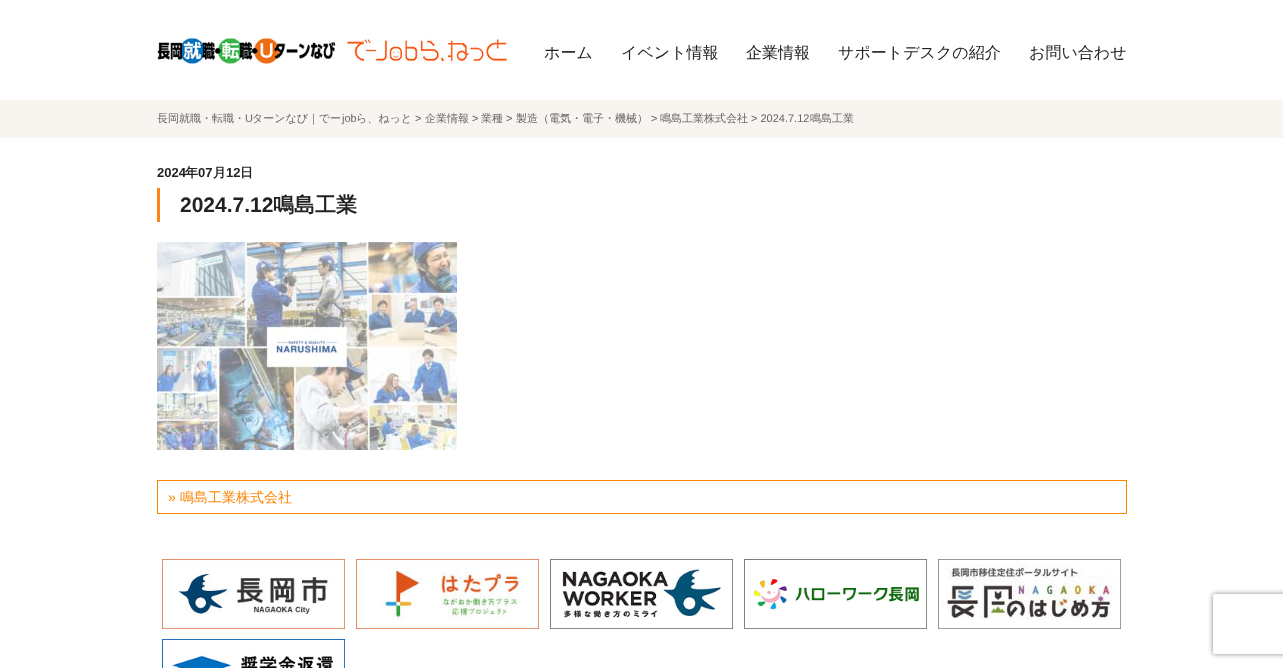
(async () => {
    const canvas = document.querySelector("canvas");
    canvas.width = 1283;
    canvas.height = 668;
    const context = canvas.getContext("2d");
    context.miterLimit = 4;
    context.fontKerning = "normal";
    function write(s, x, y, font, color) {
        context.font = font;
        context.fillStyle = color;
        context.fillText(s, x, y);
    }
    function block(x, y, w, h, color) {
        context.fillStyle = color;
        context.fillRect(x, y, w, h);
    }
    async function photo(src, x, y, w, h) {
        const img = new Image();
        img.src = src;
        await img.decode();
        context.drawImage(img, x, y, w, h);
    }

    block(0, 0, 1283, 668, "rgb(255, 255, 255)");
    await photo("media/1.png", 157, 37, 350, 27);
    write("ホーム", 544, 58, "500 16px WenQuanYi Zen Hei", "rgb(34, 34, 34)");
    write("イベント情報", 621, 58, "500 16px WenQuanYi Zen Hei", "rgb(34, 34, 34)");
    write("企業情報", 746, 58, "500 16px WenQuanYi Zen Hei", "rgb(34, 34, 34)");
    write("サポートデスクの紹介", 838, 58, "500 16px WenQuanYi Zen Hei", "rgb(34, 34, 34)");
    write("お問い合わせ", 1029, 58, "500 16px WenQuanYi Zen Hei", "rgb(34, 34, 34)");
    block(0, 100, 1283, 38, "rgb(248, 245, 241)");
    write("長岡就職・転職・", 157, 122, "500 11px WenQuanYi Zen Hei", "rgb(102, 102, 102)");
    write("U", 245, 122, "11px Liberation Sans", "rgb(102, 102, 102)");
    write("ターンなび｜でー", 252, 122, "500 11px WenQuanYi Zen Hei", "rgb(102, 102, 102)");
    write("job", 342, 122, "11px Liberation Sans", "rgb(102, 102, 102)");
    write("ら、ねっと", 356, 122, "500 11px WenQuanYi Zen Hei", "rgb(102, 102, 102)");
    write(">", 415, 122, "11px Liberation Sans", "rgb(102, 102, 102)");
    write("企業情報", 425, 122, "500 11px WenQuanYi Zen Hei", "rgb(102, 102, 102)");
    write(">", 472, 122, "11px Liberation Sans", "rgb(102, 102, 102)");
    write("業種", 481, 122, "500 11px WenQuanYi Zen Hei", "rgb(102, 102, 102)");
    write(">", 506, 122, "11px Liberation Sans", "rgb(102, 102, 102)");
    write("製造（電気・電子・機械）", 516, 122, "500 11px WenQuanYi Zen Hei", "rgb(102, 102, 102)");
    write(">", 651, 122, "11px Liberation Sans", "rgb(102, 102, 102)");
    write("鳴島工業株式会社", 660, 122, "500 11px WenQuanYi Zen Hei", "rgb(102, 102, 102)");
    write("> 2024.7.12", 751, 122, "11px Liberation Sans", "rgb(102, 102, 102)");
    write("鳴島工業", 810, 122, "500 11px WenQuanYi Zen Hei", "rgb(102, 102, 102)");
    write("2024", 157, 177, "bold 13px Liberation Sans", "rgb(34, 34, 34)");
    write("年", 185, 177, "bold 13px WenQuanYi Zen Hei", "rgb(34, 34, 34)");
    write("07", 198, 177, "bold 13px Liberation Sans", "rgb(34, 34, 34)");
    write("月", 213, 177, "bold 13px WenQuanYi Zen Hei", "rgb(34, 34, 34)");
    write("12", 226, 177, "bold 13px Liberation Sans", "rgb(34, 34, 34)");
    write("日", 240, 177, "bold 13px WenQuanYi Zen Hei", "rgb(34, 34, 34)");
    block(157, 188, 3, 34, "rgb(255, 131, 22)");
    write("2024.7.12", 180, 212, "bold 21px Liberation Sans", "rgb(34, 34, 34)");
    write("鳴島工業", 273, 212, "bold 21px WenQuanYi Zen Hei", "rgb(34, 34, 34)");
    await photo("media/2.png", 157, 242, 300, 208);
    context.strokeStyle = "rgb(254, 132, 6)";
    context.strokeRect(157.5, 480.5, 969, 33);
    write("»", 168, 502, "14px Liberation Sans", "rgb(254, 132, 6)");
    write("鳴島工業株式会社", 180, 502, "500 14px WenQuanYi Zen Hei", "rgb(254, 132, 6)");
    await photo("media/3.png", 162, 559, 183, 70);
    await photo("media/4.png", 356, 559, 183, 70);
    await photo("media/5.png", 550, 559, 183, 70);
    await photo("media/6.png", 744, 559, 183, 70);
    await photo("media/7.png", 938, 559, 183, 70);
    await photo("media/8.png", 162, 639, 183, 29);
    context.save();
    context.beginPath();
    context.moveTo(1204, 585);
    context.lineTo(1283, 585);
    context.lineTo(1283, 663);
    context.lineTo(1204, 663);
    context.closePath();
    context.moveTo(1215, 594);
    context.lineTo(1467, 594);
    context.bezierCurveTo(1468, 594, 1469, 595, 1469, 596);
    context.lineTo(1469, 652);
    context.bezierCurveTo(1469, 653, 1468, 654, 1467, 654);
    context.lineTo(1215, 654);
    context.bezierCurveTo(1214, 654, 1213, 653, 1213, 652);
    context.lineTo(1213, 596);
    context.bezierCurveTo(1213, 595, 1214, 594, 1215, 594);
    context.closePath();
    context.clip("evenodd");
    context.fillStyle = "rgb(128, 128, 128)";
    context.filter = "blur(2.5px)";
    context.beginPath();
    context.roundRect(1213, 594, 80, 60, 2);
    context.fill();
    context.filter = "none";
    context.restore();
})();
